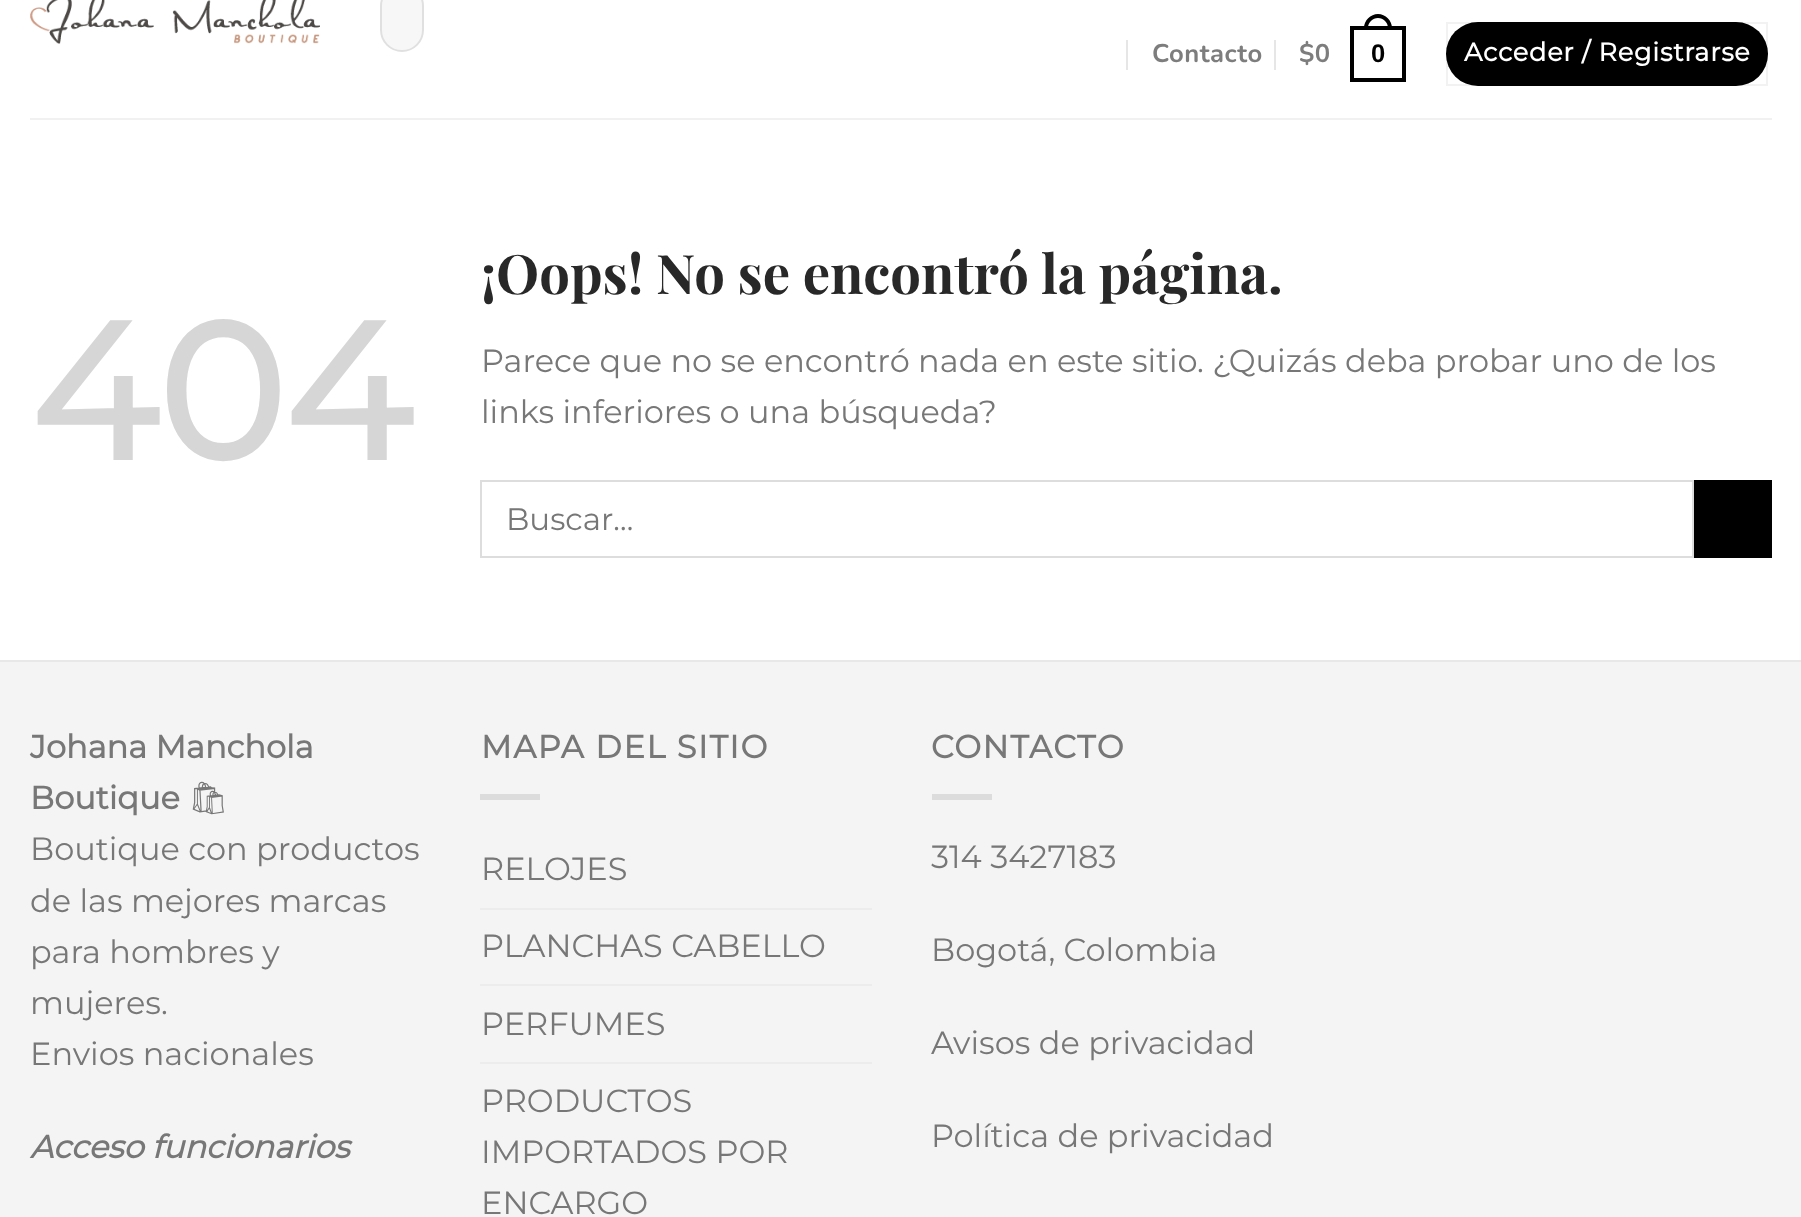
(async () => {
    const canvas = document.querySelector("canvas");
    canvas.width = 1801;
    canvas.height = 1217;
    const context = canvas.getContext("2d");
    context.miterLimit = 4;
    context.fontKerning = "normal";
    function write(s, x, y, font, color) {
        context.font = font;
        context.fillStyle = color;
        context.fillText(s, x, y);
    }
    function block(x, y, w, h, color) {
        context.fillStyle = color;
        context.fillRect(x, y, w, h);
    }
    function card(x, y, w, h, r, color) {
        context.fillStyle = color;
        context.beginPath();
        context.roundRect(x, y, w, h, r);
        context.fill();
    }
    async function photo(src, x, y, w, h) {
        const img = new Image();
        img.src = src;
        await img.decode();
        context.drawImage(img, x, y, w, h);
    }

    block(0, 0, 1801, 1217, "rgb(255, 255, 255)");
    await photo("media/1.png", 30, 0, 290, 44);
    card(380, -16, 44, 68, 22, "rgb(247, 247, 247)");
    context.beginPath();
    context.roundRect(381, -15, 42, 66, 21);
    context.strokeStyle = "rgba(0, 0, 0, 0.09)";
    context.lineWidth = 2;
    context.stroke();
    block(1126, 40, 2, 30, "rgb(230, 230, 230)");
    context.letterSpacing = "0.5px";
    write("Contacto", 1152, 62, "bold 25.6px Nunito", "rgb(125, 125, 125)");
    block(1274, 40, 2, 30, "rgb(230, 230, 230)");
    write("$0", 1299, 62, "bold 25.6px Nunito", "rgb(125, 125, 125)");
    context.strokeStyle = "rgb(0, 0, 0)";
    context.lineWidth = 4;
    context.strokeRect(1352, 28, 52, 52);
    context.fillStyle = "rgb(0, 0, 0)";
    context.beginPath();
    context.moveTo(1378, 14);
    context.bezierCurveTo(1385.5, 14, 1392, 20.5, 1392, 28);
    context.lineTo(1392, 30);
    context.lineTo(1364, 30);
    context.lineTo(1364, 28);
    context.bezierCurveTo(1364, 20.5, 1370.5, 14, 1378, 14);
    context.closePath();
    context.moveTo(1378, 18);
    context.bezierCurveTo(1383.5, 18, 1388, 22.5, 1388, 28);
    context.lineTo(1388, 30);
    context.lineTo(1368, 30);
    context.lineTo(1368, 28);
    context.bezierCurveTo(1368, 22.5, 1372.5, 18, 1378, 18);
    context.closePath();
    context.fill("evenodd");
    write("0", 1371, 62, "bold 25.6px Liberation Sans", "rgb(0, 0, 0)");
    card(1446, 22, 322, 64, 32, "rgb(0, 0, 0)");
    context.strokeStyle = "rgba(0, 0, 0, 0.05)";
    context.lineWidth = 2;
    context.strokeRect(1447, 23, 320, 62);
    context.letterSpacing = "0.75px";
    write("Acceder / Registrarse", 1464, 61, "bold 25.6px Montserrat", "rgb(255, 255, 255)");
    block(30, 118, 1742, 2, "rgb(241, 241, 241)");
    context.letterSpacing = "0px";
    write("404", 30, 460, "bold 192px Montserrat", "rgb(214, 214, 214)");
    write("¡Oops! No se encontró la página.", 481, 294, "bold 54.4px Playfair Display", "rgb(40, 40, 40)");
    write("Parece que no se encontró nada en este sitio. ¿Quizás deba probar uno de los", 481, 372, "100 32px Montserrat", "rgb(119, 119, 119)");
    write("links inferiores o una búsqueda?", 481, 423, "100 32px Montserrat", "rgb(119, 119, 119)");
    context.strokeStyle = "rgb(221, 221, 221)";
    context.strokeRect(481, 481, 1212, 76);
    write("Buscar…", 506, 530, "100 31px Montserrat", "rgb(119, 119, 119)");
    block(1694, 480, 78, 78, "rgb(0, 0, 0)");
    block(0, 662, 1801, 555, "rgb(244, 244, 244)");
    block(0, 660, 1801, 2, "rgb(232, 232, 232)");
    write("Johana Manchola", 30, 758, "bold 32px Montserrat", "rgb(119, 119, 119)");
    write("Boutique", 30, 809, "bold 32px Montserrat", "rgb(119, 119, 119)");
    write("🛍", 188, 809, "32px Noto Emoji", "rgb(119, 119, 119)");
    write("Boutique con productos", 30, 860, "100 32px Montserrat", "rgb(119, 119, 119)");
    write("de las mejores marcas", 30, 912, "100 32px Montserrat", "rgb(119, 119, 119)");
    write("para hombres y", 30, 963, "100 32px Montserrat", "rgb(119, 119, 119)");
    write("mujeres.", 30, 1014, "100 32px Montserrat", "rgb(119, 119, 119)");
    write("Envios nacionales", 30, 1065, "100 32px Montserrat", "rgb(119, 119, 119)");
    write("Acceso funcionarios", 30, 1158, "italic bold 32px Montserrat", "rgb(119, 119, 119)");
    context.letterSpacing = "1.6px";
    write("MAPA DEL SITIO", 481, 758, "bold 32px Montserrat", "rgb(119, 119, 119)");
    block(480, 794, 60, 6, "rgb(220, 220, 220)");
    context.letterSpacing = "0px";
    write("RELOJES", 481, 880, "100 32px Montserrat", "rgb(119, 119, 119)");
    block(480, 908, 392, 2, "rgb(236, 236, 236)");
    write("PLANCHAS CABELLO", 481, 957, "100 32px Montserrat", "rgb(119, 119, 119)");
    block(480, 984, 392, 2, "rgb(236, 236, 236)");
    write("PERFUMES", 481, 1035, "100 32px Montserrat", "rgb(119, 119, 119)");
    block(480, 1062, 392, 2, "rgb(236, 236, 236)");
    write("PRODUCTOS", 481, 1112, "100 32px Montserrat", "rgb(119, 119, 119)");
    write("IMPORTADOS POR", 481, 1163, "100 32px Montserrat", "rgb(119, 119, 119)");
    write("ENCARGO", 481, 1214, "100 32px Montserrat", "rgb(119, 119, 119)");
    context.letterSpacing = "1.6px";
    write("CONTACTO", 931, 758, "bold 32px Montserrat", "rgb(119, 119, 119)");
    block(932, 794, 60, 6, "rgb(220, 220, 220)");
    context.letterSpacing = "0px";
    write("314 3427183", 931, 868, "100 32px Montserrat", "rgb(119, 119, 119)");
    write("Bogotá, Colombia", 931, 961, "100 32px Montserrat", "rgb(119, 119, 119)");
    write("Avisos de privacidad", 931, 1054, "100 32px Montserrat", "rgb(119, 119, 119)");
    write("Política de privacidad", 931, 1147, "100 32px Montserrat", "rgb(119, 119, 119)");
})();
